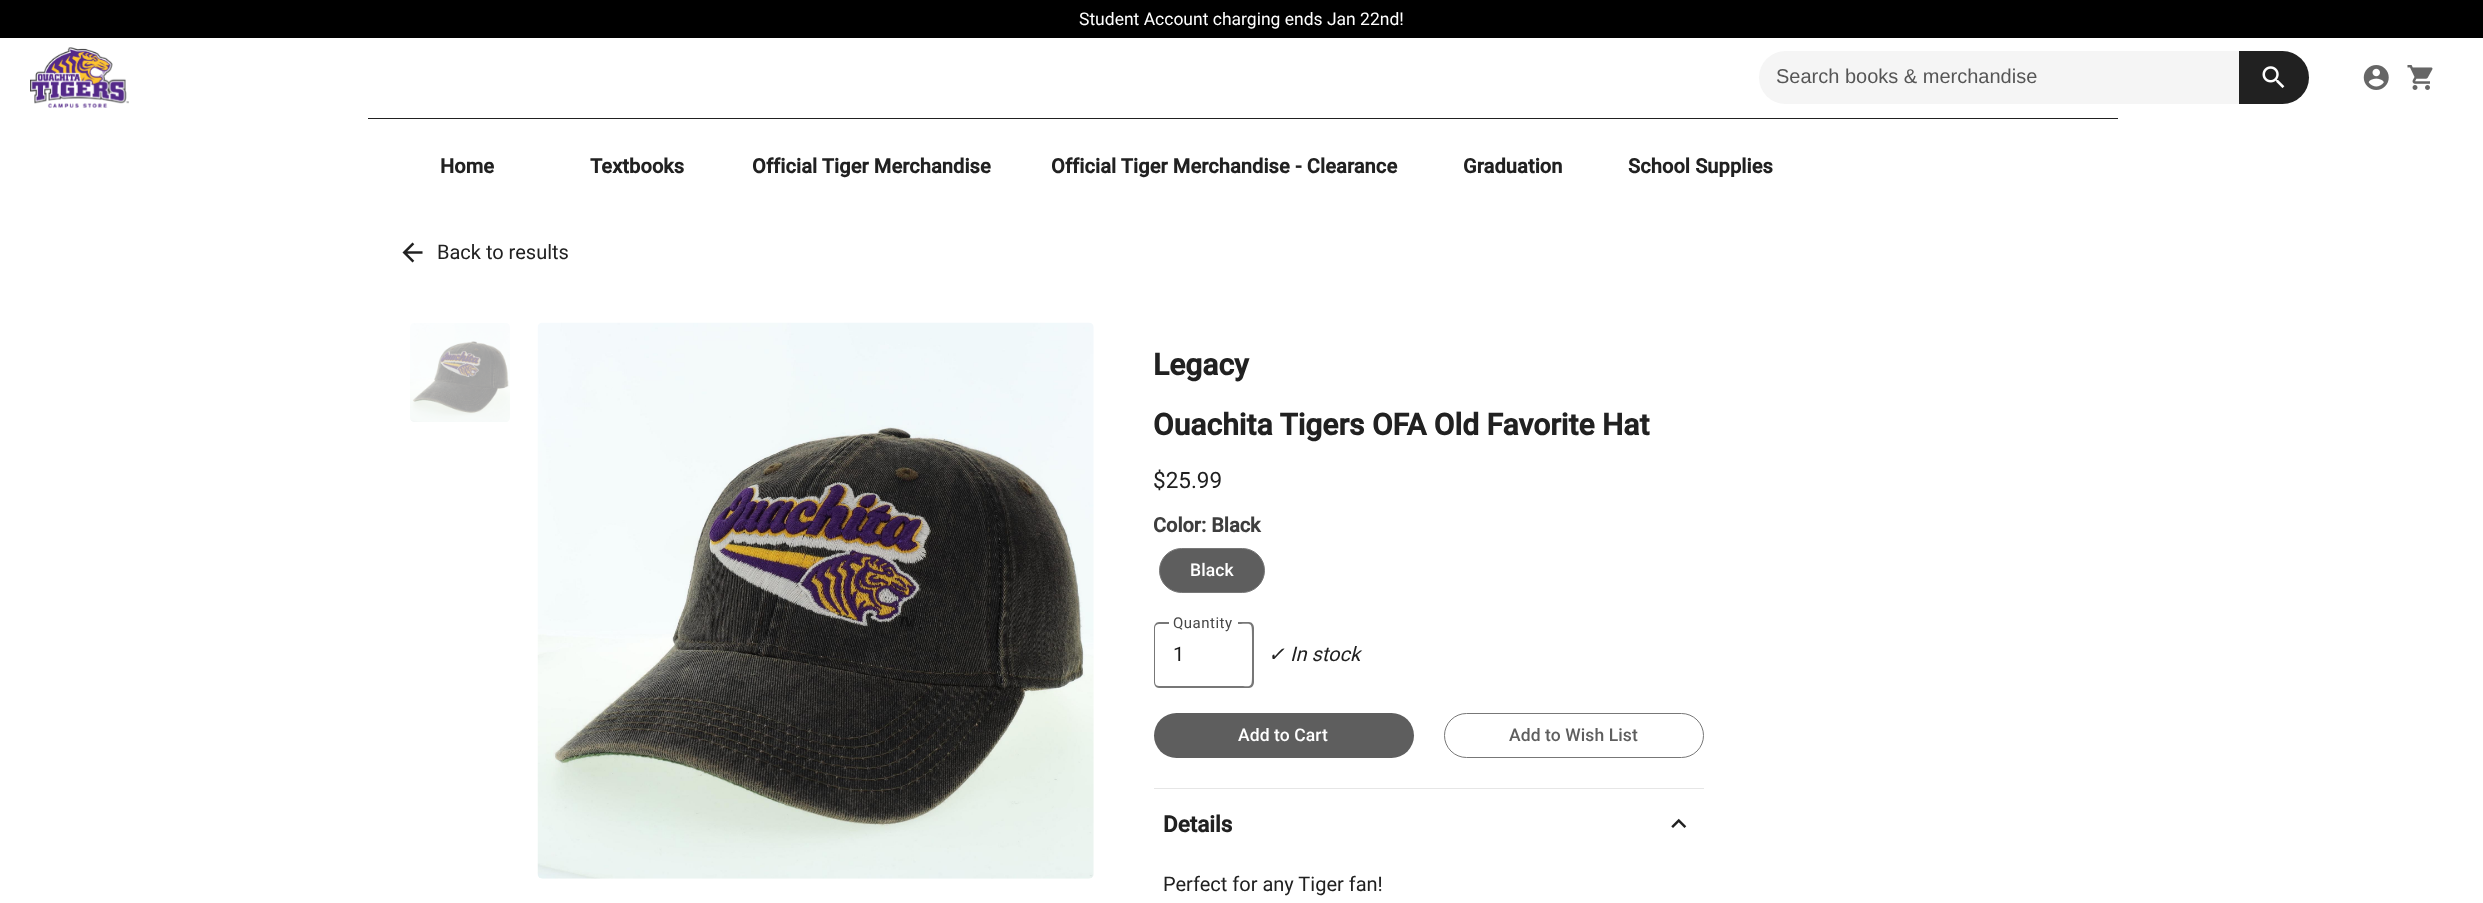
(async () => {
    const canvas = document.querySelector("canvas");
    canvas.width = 2483;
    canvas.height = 903;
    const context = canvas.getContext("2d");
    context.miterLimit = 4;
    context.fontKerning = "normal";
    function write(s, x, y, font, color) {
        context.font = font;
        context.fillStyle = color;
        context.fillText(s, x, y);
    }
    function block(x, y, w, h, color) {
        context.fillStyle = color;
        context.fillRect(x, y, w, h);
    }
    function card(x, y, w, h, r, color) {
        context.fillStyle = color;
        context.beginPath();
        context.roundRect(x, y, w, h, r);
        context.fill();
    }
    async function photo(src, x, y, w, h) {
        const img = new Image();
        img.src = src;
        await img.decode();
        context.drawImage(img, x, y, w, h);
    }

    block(0, 0, 2483, 903, "rgb(255, 255, 255)");
    block(0, 0, 2483, 38, "rgb(0, 0, 0)");
    write("Student Account charging ends Jan 22nd!", 1079, 25, "17.5px Roboto", "rgb(255, 255, 255)");
    await photo("media/1.png", 30, 47, 99, 61);
    card(1759, 51, 550, 53, 26.5, "rgb(245, 245, 245)");
    write("Search books & merchandise", 1776, 83, "20px Liberation Sans", "rgb(86, 86, 86)");
    context.fillStyle = "rgb(33, 33, 33)";
    context.beginPath();
    context.roundRect(2239, 51, 70, 53, [0, 26.5, 26.5, 0]);
    context.fill();
    await photo("media/2.png", 2262, 66, 23, 22);
    await photo("media/3.png", 2363, 65, 26, 25);
    await photo("media/4.png", 2407, 65, 26, 25);
    block(368, 118, 1750, 1, "rgb(33, 33, 33)");
    context.letterSpacing = "0.1px";
    write("Home", 440, 173, "bold 20px Roboto", "rgb(33, 33, 33)");
    write("Textbooks", 590, 173, "bold 20px Roboto", "rgb(33, 33, 33)");
    write("Official Tiger Merchandise", 752, 173, "bold 20px Roboto", "rgb(33, 33, 33)");
    write("Official Tiger Merchandise - Clearance", 1051, 173, "bold 20px Roboto", "rgb(33, 33, 33)");
    write("Graduation", 1463, 173, "bold 20px Roboto", "rgb(33, 33, 33)");
    write("School Supplies", 1628, 173, "bold 20px Roboto", "rgb(33, 33, 33)");
    await photo("media/5.png", 402, 242, 21, 21);
    context.letterSpacing = "0px";
    write("Back to results", 437, 259, "20px Roboto", "rgb(33, 33, 33)");
    await photo("media/6.png", 410, 323, 100, 99);
    await photo("media/7.png", 537, 322, 557, 557);
    write("Legacy", 1153, 375, "bold 30px Roboto", "rgb(33, 33, 33)");
    write("Ouachita Tigers OFA Old Favorite Hat", 1153, 435, "bold 30px Roboto", "rgb(33, 33, 33)");
    write("$25.99", 1153, 488, "22.5px Roboto", "rgb(33, 33, 33)");
    write("Color: Black", 1153, 532, "bold 20px Roboto", "rgb(62, 62, 62)");
    context.fillStyle = "rgb(94, 94, 94)";
    context.beginPath();
    context.roundRect(1159.5, 548.5, 105, 44, 22);
    context.fill();
    context.strokeStyle = "rgb(119, 119, 119)";
    context.stroke();
    context.letterSpacing = "0.1px";
    write("Black", 1190, 576, "500 17.5px Roboto", "rgb(255, 255, 255)");
    context.fillStyle = "rgb(119, 119, 119)";
    context.beginPath();
    context.moveTo(1159, 622);
    context.lineTo(1169, 622);
    context.lineTo(1169, 688);
    context.lineTo(1159, 688);
    context.bezierCurveTo(1156, 688, 1154, 685, 1154, 682);
    context.lineTo(1154, 628);
    context.bezierCurveTo(1154, 625, 1156, 622, 1159, 622);
    context.closePath();
    context.moveTo(1159, 624);
    context.lineTo(1169, 624);
    context.lineTo(1169, 686);
    context.lineTo(1159, 686);
    context.bezierCurveTo(1157, 686, 1155, 685, 1155, 682);
    context.lineTo(1155, 628);
    context.bezierCurveTo(1155, 625, 1157, 624, 1159, 624);
    context.closePath();
    context.fill("evenodd");
    context.beginPath();
    context.moveTo(1238, 688);
    context.lineTo(1168, 688);
    context.lineTo(1169, 686);
    context.lineTo(1238, 686);
    context.closePath();
    context.fill();
    context.letterSpacing = "0.5px";
    write("Quantity", 1173, 628, "15px Roboto", "rgb(71, 71, 71)");
    context.fillStyle = "rgb(119, 119, 119)";
    context.beginPath();
    context.moveTo(1238, 622);
    context.lineTo(1249, 622);
    context.bezierCurveTo(1252, 622, 1254, 625, 1254, 628);
    context.lineTo(1254, 682);
    context.bezierCurveTo(1254, 685, 1252, 688, 1249, 688);
    context.lineTo(1238, 688);
    context.closePath();
    context.moveTo(1238, 624);
    context.bezierCurveTo(1252, 624, 1252, 621, 1252, 637);
    context.lineTo(1252, 673);
    context.bezierCurveTo(1252, 689, 1252, 686, 1238, 686);
    context.closePath();
    context.fill("evenodd");
    context.letterSpacing = "1px";
    write("1", 1173, 661, "20px Roboto", "rgb(27, 27, 27)");
    context.letterSpacing = "0px";
    write("✓", 1268, 661, "italic 20px DejaVu Sans", "rgb(33, 33, 33)");
    write("In stock", 1290, 661, "italic 20px Roboto", "rgb(33, 33, 33)");
    card(1154, 713, 260, 45, 22.5, "rgb(94, 94, 94)");
    context.letterSpacing = "0.1px";
    write("Add to Cart", 1238, 741, "500 17.5px Roboto", "rgb(255, 255, 255)");
    context.beginPath();
    context.roundRect(1444.5, 713.5, 259, 44, 22);
    context.stroke();
    write("Add to Wish List", 1509, 741, "500 17.5px Roboto", "rgb(94, 94, 94)");
    block(1154, 788, 550, 1, "rgb(230, 230, 230)");
    context.letterSpacing = "0px";
    write("Details", 1163, 832, "bold 22.5px Roboto", "rgb(33, 33, 33)");
    await photo("media/8.png", 1671, 818, 16, 10);
    write("Perfect for any Tiger fan!", 1163, 891, "20px Roboto", "rgb(33, 33, 33)");
})();
